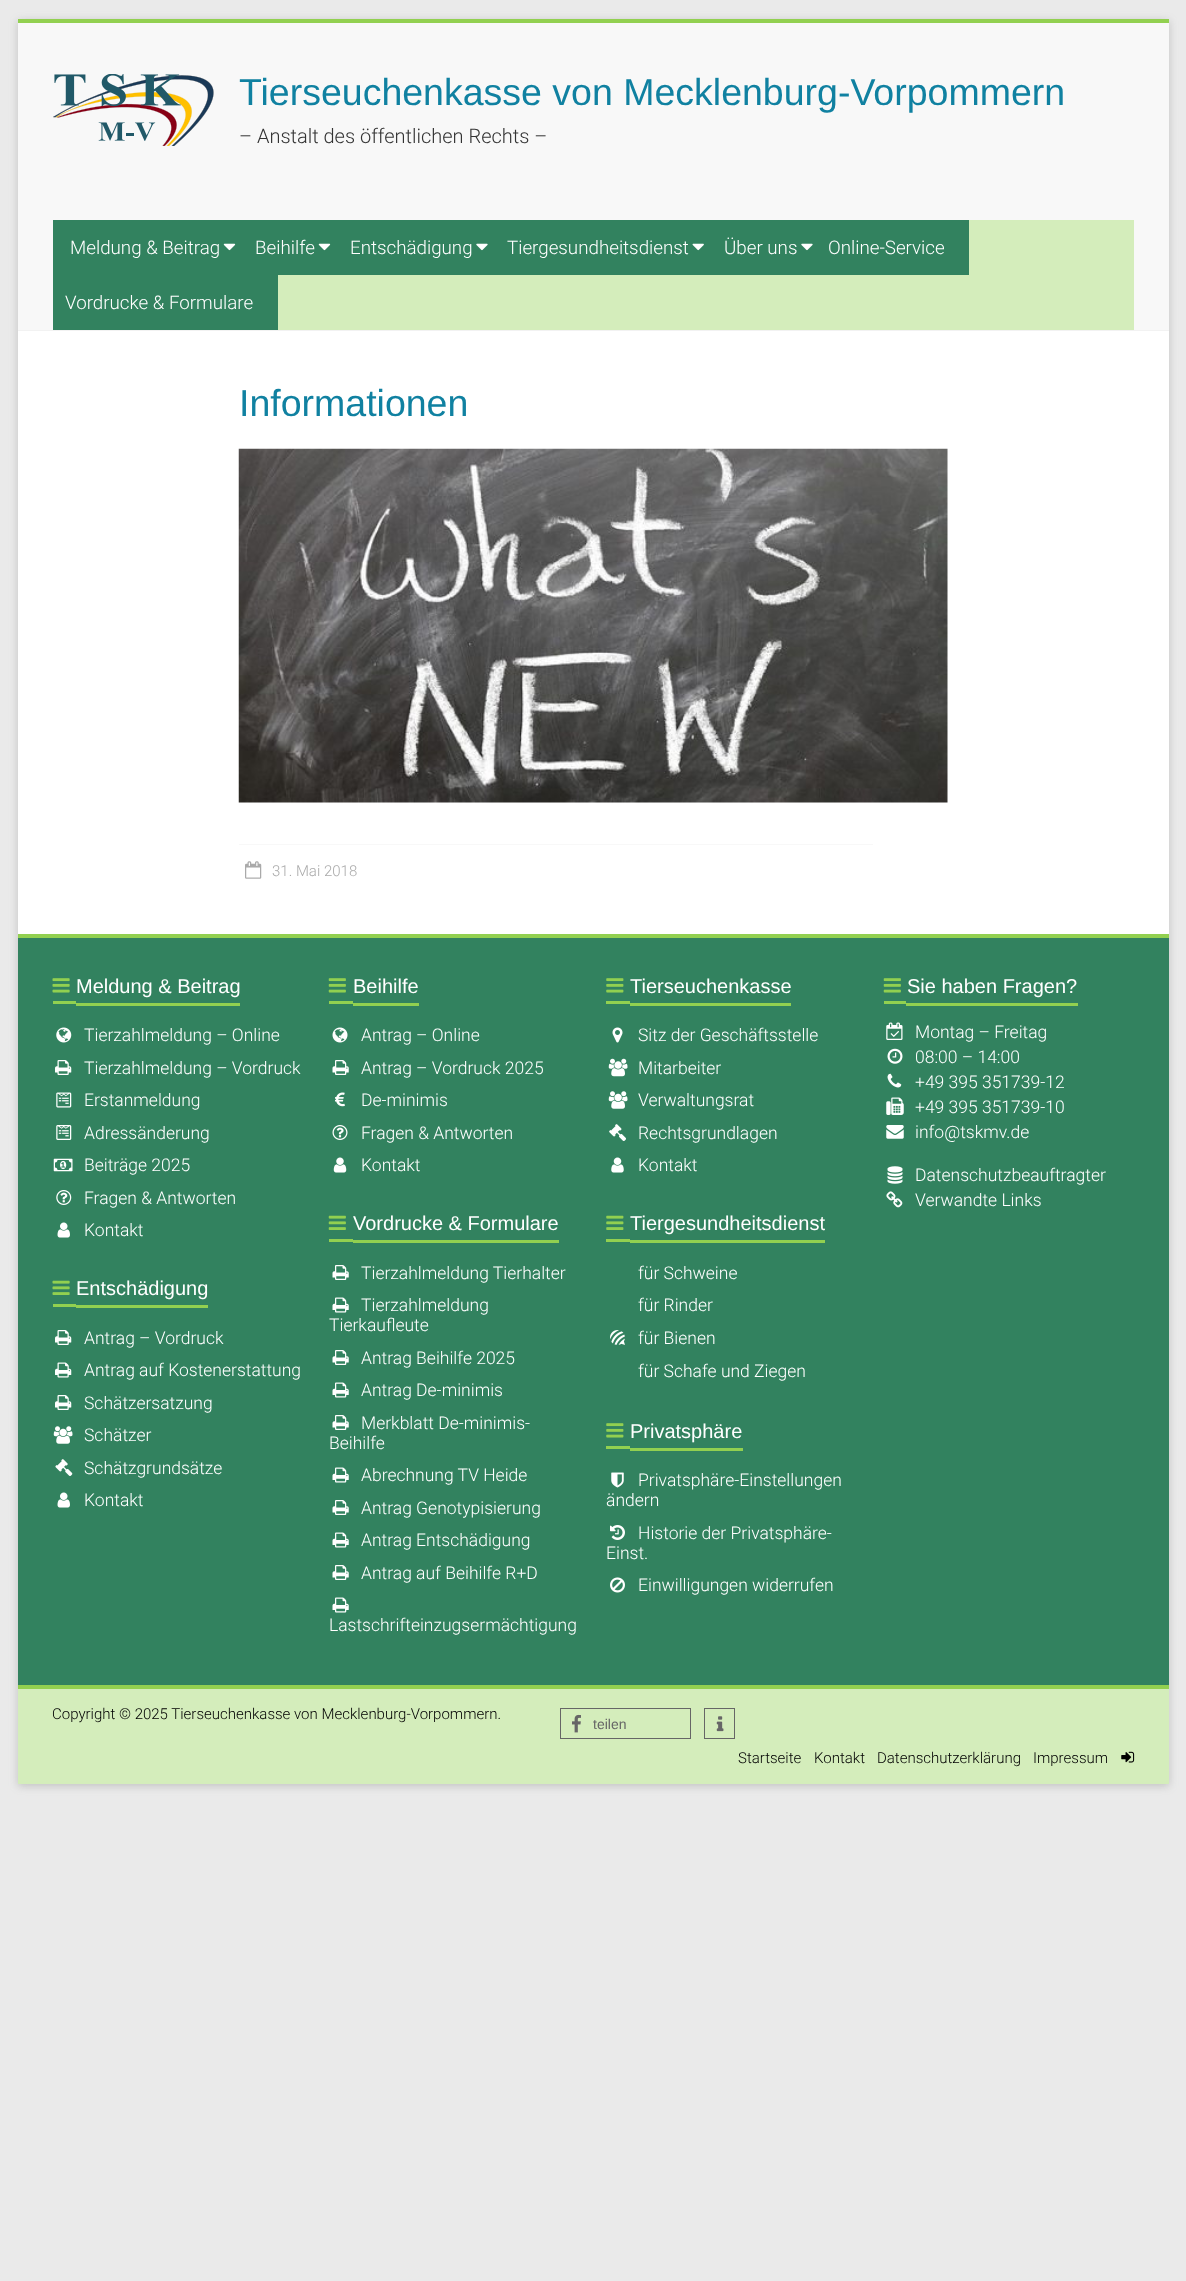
(async () => {
    const canvas = document.querySelector("canvas");
    canvas.width = 1186;
    canvas.height = 2281;
    const context = canvas.getContext("2d");
    context.miterLimit = 4;
    context.fontKerning = "normal";
    function write(s, x, y, font, color) {
        context.font = font;
        context.fillStyle = color;
        context.fillText(s, x, y);
    }
    function block(x, y, w, h, color) {
        context.fillStyle = color;
        context.fillRect(x, y, w, h);
    }
    async function photo(src, x, y, w, h) {
        const img = new Image();
        img.src = src;
        await img.decode();
        context.drawImage(img, x, y, w, h);
    }

    block(0, 0, 1186, 2281, "rgb(234, 234, 234)");
    context.fillStyle = "rgba(100, 100, 100, 0.3)";
    context.filter = "blur(4px)";
    context.beginPath();
    context.rect(18, 21, 1151, 1765);
    context.fill();
    context.filter = "none";
    block(18, 331, 1151, 603, "rgb(255, 255, 255)");
    block(18, 19, 1151, 4, "rgb(146, 208, 80)");
    block(18, 23, 1151, 307, "rgb(248, 248, 248)");
    block(18, 330, 1151, 1, "rgb(242, 242, 242)");
    await photo("media/1.png", 53, 74, 161, 72);
    write("Tierseuchenkasse von Mecklenburg-Vorpommern", 239, 105, "37.5px Liberation Sans", "rgb(16, 129, 161)");
    write("– Anstalt des öffentlichen Rechts –", 239, 143, "300 20px Roboto", "rgb(51, 51, 51)");
    block(278, 220, 856, 110, "rgb(212, 237, 187)");
    block(53, 220, 916, 55, "rgb(50, 130, 95)");
    write("Meldung & Beitrag", 70, 254, "300 18.75px Roboto", "rgb(255, 255, 255)");
    await photo("media/2.png", 223, 243, 13, 8);
    write("Beihilfe", 255, 254, "300 18.75px Roboto", "rgb(255, 255, 255)");
    await photo("media/2.png", 318, 243, 13, 8);
    write("Entschädigung", 350, 254, "300 18.75px Roboto", "rgb(255, 255, 255)");
    await photo("media/3.png", 476, 243, 12, 8);
    write("Tiergesundheitsdienst", 507, 254, "300 18.75px Roboto", "rgb(255, 255, 255)");
    await photo("media/4.png", 692, 243, 12, 8);
    write("Über uns", 724, 254, "300 18.75px Roboto", "rgb(255, 255, 255)");
    await photo("media/3.png", 801, 243, 12, 8);
    write("Online-Service", 828, 254, "300 18.75px Roboto", "rgb(255, 255, 255)");
    block(53, 275, 225, 55, "rgb(50, 130, 95)");
    write("Vordrucke & Formulare", 65, 309, "300 18.75px Roboto", "rgb(255, 255, 255)");
    write("Informationen", 239, 416, "37.5px Liberation Sans", "rgb(16, 129, 161)");
    await photo("media/5.png", 238, 448, 710, 355);
    block(239, 844, 634, 1, "rgb(248, 248, 248)");
    await photo("media/6.png", 245, 861, 17, 18);
    write("31. Mai 2018", 272, 876, "300 15px Roboto", "rgb(170, 170, 170)");
    block(18, 938, 1151, 747, "rgb(50, 130, 95)");
    block(18, 934, 1151, 4, "rgb(146, 208, 80)");
    await photo("media/7.png", 52, 978, 18, 15);
    write("Meldung & Beitrag", 76, 993, "20px Liberation Sans", "rgb(255, 255, 255)");
    block(53, 1001, 23, 3, "rgb(146, 208, 80)");
    block(76, 1003, 164, 3, "rgb(146, 208, 80)");
    await photo("media/8.png", 56, 1027, 16, 16);
    write("Tierzahlmeldung – Online", 84, 1041, "300 17.5px Roboto", "rgb(255, 255, 255)");
    await photo("media/9.png", 55, 1060, 17, 15);
    write("Tierzahlmeldung – Vordruck", 84, 1074, "300 17.5px Roboto", "rgb(255, 255, 255)");
    await photo("media/10.png", 56, 1092, 16, 16);
    write("Erstanmeldung", 84, 1106, "300 17.5px Roboto", "rgb(255, 255, 255)");
    await photo("media/11.png", 56, 1125, 16, 15);
    write("Adressänderung", 84, 1139, "300 17.5px Roboto", "rgb(255, 255, 255)");
    await photo("media/12.png", 53, 1158, 20, 14);
    write("Beiträge 2025", 84, 1171, "300 17.5px Roboto", "rgb(255, 255, 255)");
    await photo("media/13.png", 56, 1190, 16, 15);
    write("Fragen & Antworten", 84, 1204, "300 17.5px Roboto", "rgb(255, 255, 255)");
    await photo("media/14.png", 57, 1222, 13, 16);
    write("Kontakt", 84, 1236, "300 17.5px Roboto", "rgb(255, 255, 255)");
    await photo("media/15.png", 52, 1280, 18, 15);
    write("Entschädigung", 76, 1295, "20px Liberation Sans", "rgb(255, 255, 255)");
    block(53, 1304, 23, 3, "rgb(146, 208, 80)");
    block(76, 1305, 132, 3, "rgb(146, 208, 80)");
    await photo("media/9.png", 55, 1330, 17, 15);
    write("Antrag – Vordruck", 84, 1344, "300 17.5px Roboto", "rgb(255, 255, 255)");
    await photo("media/16.png", 55, 1362, 17, 16);
    write("Antrag auf Kostenerstattung", 84, 1376, "300 17.5px Roboto", "rgb(255, 255, 255)");
    await photo("media/9.png", 55, 1395, 17, 15);
    write("Schätzersatzung", 84, 1409, "300 17.5px Roboto", "rgb(255, 255, 255)");
    await photo("media/17.png", 53, 1426, 20, 18);
    write("Schätzer", 84, 1441, "300 17.5px Roboto", "rgb(255, 255, 255)");
    await photo("media/18.png", 55, 1459, 18, 17);
    write("Schätzgrundsätze", 84, 1474, "300 17.5px Roboto", "rgb(255, 255, 255)");
    await photo("media/14.png", 57, 1492, 13, 16);
    write("Kontakt", 84, 1506, "300 17.5px Roboto", "rgb(255, 255, 255)");
    await photo("media/19.png", 328, 978, 18, 15);
    write("Beihilfe", 353, 993, "20px Liberation Sans", "rgb(255, 255, 255)");
    block(329, 1001, 24, 3, "rgb(146, 208, 80)");
    block(353, 1003, 66, 3, "rgb(146, 208, 80)");
    await photo("media/20.png", 332, 1027, 16, 16);
    write("Antrag – Online", 361, 1041, "300 17.5px Roboto", "rgb(255, 255, 255)");
    await photo("media/21.png", 332, 1060, 17, 15);
    write("Antrag – Vordruck 2025", 361, 1074, "300 17.5px Roboto", "rgb(255, 255, 255)");
    await photo("media/22.png", 335, 1092, 10, 15);
    write("De-minimis", 361, 1106, "300 17.5px Roboto", "rgb(255, 255, 255)");
    await photo("media/23.png", 332, 1125, 16, 15);
    write("Fragen & Antworten", 361, 1139, "300 17.5px Roboto", "rgb(255, 255, 255)");
    await photo("media/24.png", 333, 1157, 14, 16);
    write("Kontakt", 361, 1171, "300 17.5px Roboto", "rgb(255, 255, 255)");
    await photo("media/25.png", 328, 1215, 18, 15);
    write("Vordrucke & Formulare", 353, 1230, "20px Liberation Sans", "rgb(255, 255, 255)");
    block(329, 1239, 24, 3, "rgb(146, 208, 80)");
    block(353, 1240, 206, 3, "rgb(146, 208, 80)");
    await photo("media/21.png", 332, 1265, 17, 15);
    write("Tierzahlmeldung Tierhalter", 361, 1279, "300 17.5px Roboto", "rgb(255, 255, 255)");
    await photo("media/26.png", 332, 1297, 17, 16);
    write("Tierzahlmeldung", 361, 1311, "300 17.5px Roboto", "rgb(255, 255, 255)");
    write("Tierkaufleute", 329, 1331, "300 17.5px Roboto", "rgb(255, 255, 255)");
    await photo("media/21.png", 332, 1350, 17, 15);
    write("Antrag Beihilfe 2025", 361, 1364, "300 17.5px Roboto", "rgb(255, 255, 255)");
    await photo("media/26.png", 332, 1382, 17, 16);
    write("Antrag De-minimis", 361, 1396, "300 17.5px Roboto", "rgb(255, 255, 255)");
    await photo("media/21.png", 332, 1415, 17, 15);
    write("Merkblatt De-minimis-", 361, 1429, "300 17.5px Roboto", "rgb(255, 255, 255)");
    write("Beihilfe", 329, 1449, "300 17.5px Roboto", "rgb(255, 255, 255)");
    await photo("media/26.png", 332, 1467, 17, 16);
    write("Abrechnung TV Heide", 361, 1481, "300 17.5px Roboto", "rgb(255, 255, 255)");
    await photo("media/21.png", 332, 1500, 17, 15);
    write("Antrag Genotypisierung", 361, 1514, "300 17.5px Roboto", "rgb(255, 255, 255)");
    await photo("media/26.png", 332, 1532, 17, 16);
    write("Antrag Entschädigung", 361, 1546, "300 17.5px Roboto", "rgb(255, 255, 255)");
    await photo("media/21.png", 332, 1565, 17, 15);
    write("Antrag auf Beihilfe R+D", 361, 1579, "300 17.5px Roboto", "rgb(255, 255, 255)");
    await photo("media/26.png", 332, 1597, 17, 16);
    write("Lastschrifteinzugsermächtigung", 329, 1631, "300 17.5px Roboto", "rgb(255, 255, 255)");
    await photo("media/27.png", 606, 978, 18, 15);
    write("Tierseuchenkasse", 630, 993, "20px Liberation Sans", "rgb(255, 255, 255)");
    block(606, 1001, 24, 3, "rgb(146, 208, 80)");
    block(630, 1003, 161, 3, "rgb(146, 208, 80)");
    await photo("media/28.png", 612, 1027, 11, 16);
    write("Sitz der Geschäftsstelle", 638, 1041, "300 17.5px Roboto", "rgb(255, 255, 255)");
    await photo("media/29.png", 608, 1058, 20, 19);
    write("Mitarbeiter", 638, 1074, "300 17.5px Roboto", "rgb(255, 255, 255)");
    await photo("media/17.png", 608, 1091, 20, 18);
    write("Verwaltungsrat", 638, 1106, "300 17.5px Roboto", "rgb(255, 255, 255)");
    await photo("media/30.png", 609, 1124, 17, 17);
    write("Rechtsgrundlagen", 638, 1139, "300 17.5px Roboto", "rgb(255, 255, 255)");
    await photo("media/31.png", 611, 1157, 13, 16);
    write("Kontakt", 638, 1171, "300 17.5px Roboto", "rgb(255, 255, 255)");
    await photo("media/32.png", 606, 1215, 18, 15);
    write("Tiergesundheitsdienst", 630, 1230, "20px Liberation Sans", "rgb(255, 255, 255)");
    block(606, 1239, 24, 3, "rgb(146, 208, 80)");
    block(630, 1240, 195, 3, "rgb(146, 208, 80)");
    write("für Schweine", 638, 1279, "300 17.5px Roboto", "rgb(255, 255, 255)");
    write("für Rinder", 638, 1311, "300 17.5px Roboto", "rgb(255, 255, 255)");
    await photo("media/33.png", 610, 1330, 15, 15);
    write("für Bienen", 638, 1344, "300 17.5px Roboto", "rgb(255, 255, 255)");
    write("für Schafe und Ziegen", 638, 1377, "300 17.5px Roboto", "rgb(255, 255, 255)");
    await photo("media/27.png", 606, 1423, 18, 15);
    write("Privatsphäre", 630, 1438, "20px Liberation Sans", "rgb(255, 255, 255)");
    block(606, 1446, 24, 3, "rgb(146, 208, 80)");
    block(630, 1448, 113, 3, "rgb(146, 208, 80)");
    await photo("media/34.png", 611, 1472, 13, 16);
    write("Privatsphäre-Einstellungen", 638, 1486, "300 17.5px Roboto", "rgb(255, 255, 255)");
    write("ändern", 606, 1506, "300 17.5px Roboto", "rgb(255, 255, 255)");
    await photo("media/35.png", 610, 1525, 15, 15);
    write("Historie der Privatsphäre-", 638, 1539, "300 17.5px Roboto", "rgb(255, 255, 255)");
    write("Einst.", 606, 1559, "300 17.5px Roboto", "rgb(255, 255, 255)");
    await photo("media/36.png", 610, 1577, 15, 16);
    write("Einwilligungen widerrufen", 638, 1591, "300 17.5px Roboto", "rgb(255, 255, 255)");
    await photo("media/19.png", 883, 978, 18, 15);
    write("Sie haben Fragen?", 907, 993, "20px Liberation Sans", "rgb(255, 255, 255)");
    block(884, 1001, 22, 3, "rgb(146, 208, 80)");
    block(906, 1003, 172, 3, "rgb(146, 208, 80)");
    await photo("media/37.png", 886, 1022, 17, 18);
    write("Montag – Freitag", 915, 1038, "300 17.5px Roboto", "rgb(255, 255, 255)");
    await photo("media/38.png", 887, 1048, 16, 16);
    write("08:00 – 14:00", 915, 1063, "300 17.5px Roboto", "rgb(255, 255, 255)");
    await photo("media/39.png", 887, 1073, 15, 15);
    write("+49 395 351739-12", 915, 1088, "300 17.5px Roboto", "rgb(255, 255, 255)");
    await photo("media/40.png", 886, 1097, 18, 18);
    write("+49 395 351739-10", 915, 1113, "300 17.5px Roboto", "rgb(255, 255, 255)");
    await photo("media/41.png", 886, 1125, 18, 14);
    write("info@tskmv.de", 915, 1138, "300 17.5px Roboto", "rgb(255, 255, 255)");
    await photo("media/42.png", 887, 1166, 16, 18);
    write("Datenschutzbeauftragter", 915, 1181, "300 17.5px Roboto", "rgb(255, 255, 255)");
    await photo("media/43.png", 886, 1191, 17, 17);
    write("Verwandte Links", 915, 1206, "300 17.5px Roboto", "rgb(255, 255, 255)");
    block(18, 1689, 1151, 95, "rgb(212, 237, 187)");
    block(18, 1685, 1151, 4, "rgb(146, 208, 80)");
    write("Copyright © 2025 Tierseuchenkasse von Mecklenburg-Vorpommern.", 52, 1719, "300 15px Roboto", "rgb(0, 0, 0)");
    context.strokeStyle = "rgb(102, 102, 102)";
    context.strokeRect(560.5, 1708.5, 130, 30);
    await photo("media/44.png", 572, 1714, 9, 19);
    write("teilen", 593, 1729, "14px Liberation Sans", "rgb(102, 102, 102)");
    context.strokeRect(704.5, 1708.5, 30, 30);
    await photo("media/45.png", 716, 1716, 8, 16);
    write("Startseite", 738, 1763, "300 15px Roboto", "rgb(0, 0, 0)");
    write("Kontakt", 814, 1763, "300 15px Roboto", "rgb(0, 0, 0)");
    write("Datenschutzerklärung", 877, 1763, "300 15px Roboto", "rgb(0, 0, 0)");
    write("Impressum", 1033, 1763, "300 15px Roboto", "rgb(0, 0, 0)");
    await photo("media/46.png", 1121, 1751, 14, 12);
})();
